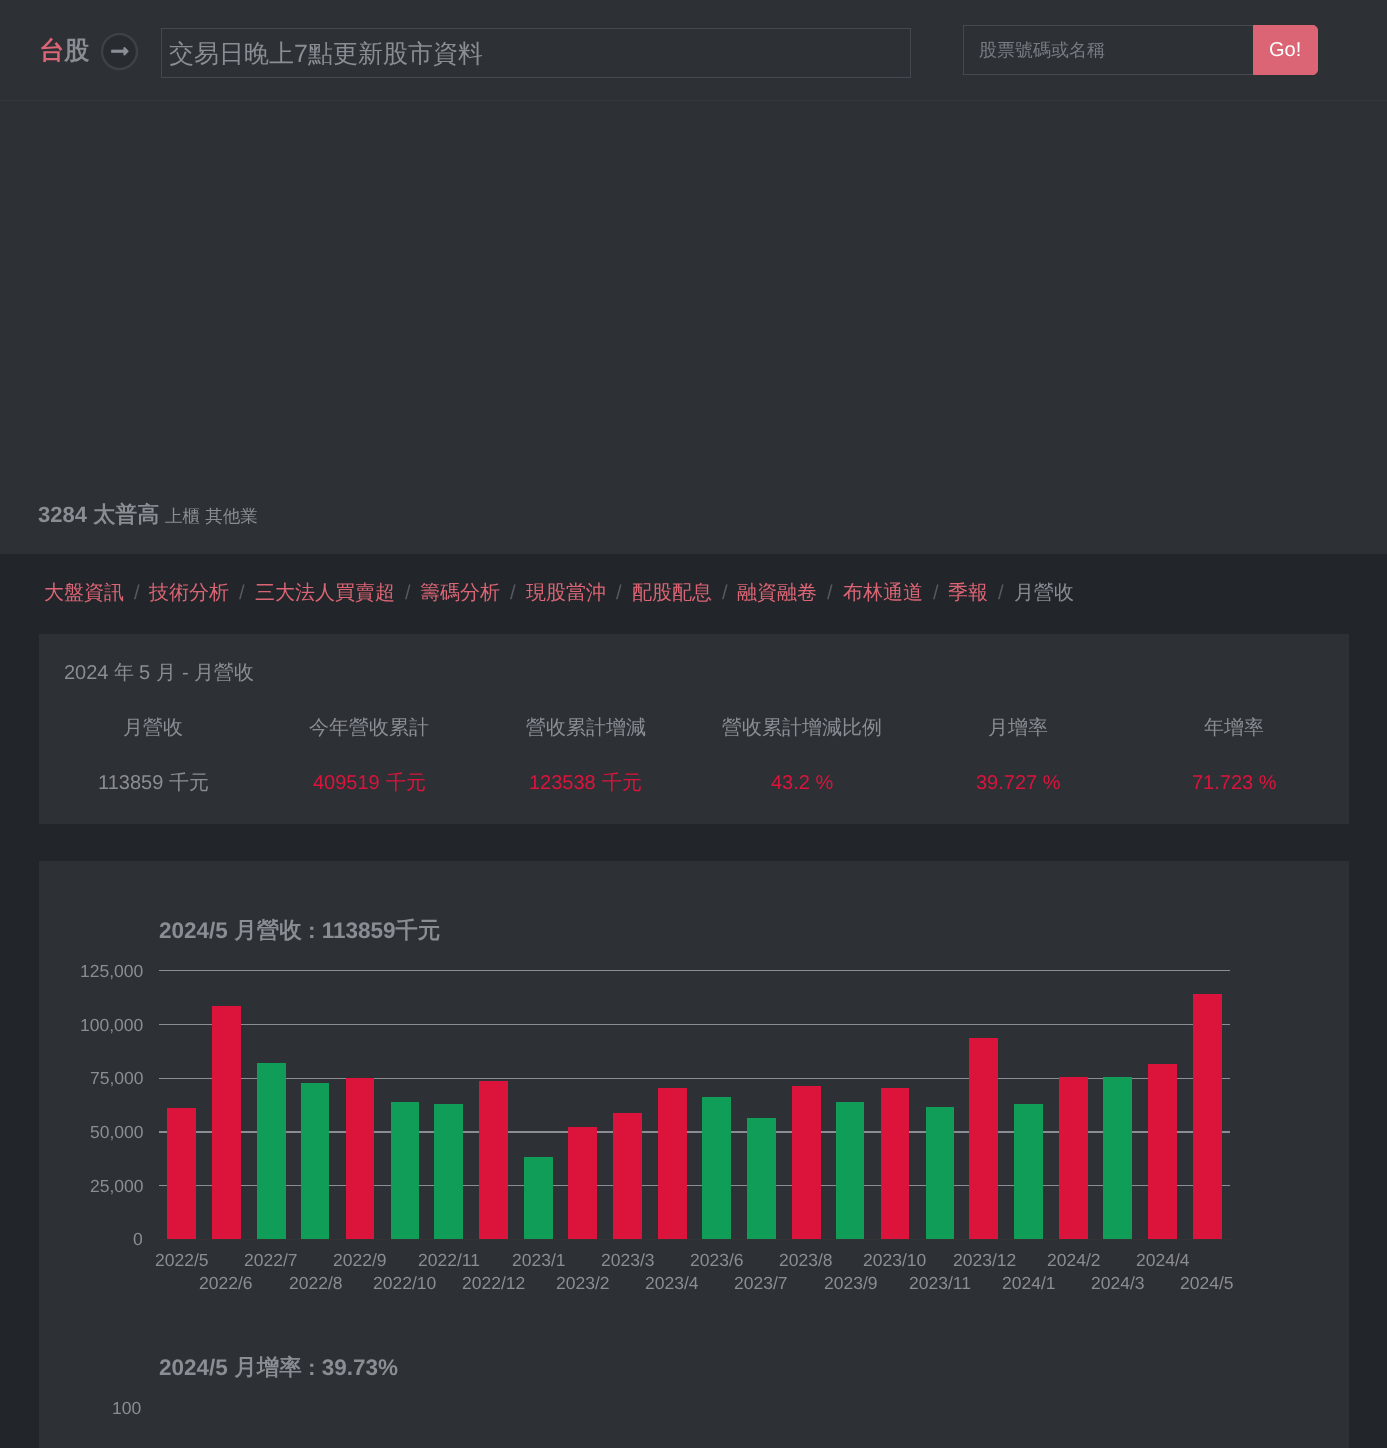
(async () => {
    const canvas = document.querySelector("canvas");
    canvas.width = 1387;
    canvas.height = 1448;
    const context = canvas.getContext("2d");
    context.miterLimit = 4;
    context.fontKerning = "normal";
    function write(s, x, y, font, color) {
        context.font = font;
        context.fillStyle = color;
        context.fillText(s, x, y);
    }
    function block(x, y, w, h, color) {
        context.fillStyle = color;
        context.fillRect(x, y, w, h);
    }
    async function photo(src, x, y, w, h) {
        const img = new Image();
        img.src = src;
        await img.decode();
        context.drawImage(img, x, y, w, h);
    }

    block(0, 0, 1387, 1448, "rgb(34, 37, 42)");
    block(0, 0, 1387, 100, "rgb(45, 48, 53)");
    block(0, 100, 1387, 1, "rgb(52, 55, 61)");
    write("台", 39, 59, "bold 25px WenQuanYi Zen Hei", "rgb(219, 101, 116)");
    write("股", 64, 59, "bold 25px WenQuanYi Zen Hei", "rgb(138, 141, 147)");
    context.fillStyle = "rgb(40, 43, 47)";
    context.beginPath();
    context.moveTo(119.5, 32.5);
    context.bezierCurveTo(109, 32.5, 100.5, 41, 100.5, 51.5);
    context.bezierCurveTo(100.5, 62, 109, 70, 119.5, 70);
    context.bezierCurveTo(129.5, 70, 138, 62, 138, 51.5);
    context.bezierCurveTo(138, 41, 129.5, 32.5, 119.5, 32.5);
    context.closePath();
    context.fill();
    context.beginPath();
    context.moveTo(119.5, 34);
    context.bezierCurveTo(109.5, 34, 102, 42, 102, 51.5);
    context.bezierCurveTo(102, 61, 109.5, 69, 119.5, 69);
    context.bezierCurveTo(129, 69, 137, 61, 137, 51.5);
    context.bezierCurveTo(137, 42, 129, 34, 119.5, 34);
    context.closePath();
    context.strokeStyle = "rgb(61, 65, 72)";
    context.lineWidth = 2.5;
    context.stroke();
    await photo("media/1.png", 111, 47, 18, 9);
    context.strokeStyle = "rgb(68, 73, 81)";
    context.lineWidth = 1;
    context.strokeRect(161.5, 28.5, 749, 49);
    write("交易日晚上", 169, 62, "500 25px WenQuanYi Zen Hei", "rgb(138, 141, 147)");
    write("7", 294, 62, "25px Liberation Sans", "rgb(138, 141, 147)");
    write("點更新股市資料", 308, 62, "500 25px WenQuanYi Zen Hei", "rgb(138, 141, 147)");
    context.strokeRect(963.5, 25.5, 290, 49);
    write("股票號碼或名稱", 979, 56, "500 18px WenQuanYi Zen Hei", "rgb(120, 123, 130)");
    context.fillStyle = "rgb(219, 101, 116)";
    context.beginPath();
    context.roundRect(1253.5, 25.5, 64, 49, [0, 4.5, 4.5, 0]);
    context.fill();
    context.strokeStyle = "rgb(219, 101, 116)";
    context.stroke();
    write("Go!", 1269, 56, "20px Liberation Sans", "rgb(255, 255, 255)");
    block(0, 101, 1387, 453, "rgb(45, 48, 53)");
    write("3284", 38, 522, "bold 22px Liberation Sans", "rgb(138, 141, 147)");
    write("太普高", 93, 522, "bold 22px WenQuanYi Zen Hei", "rgb(138, 141, 147)");
    write("上櫃 其他業", 165, 522, "500 17.5px WenQuanYi Zen Hei", "rgb(138, 141, 147)");
    write("大盤資訊", 44, 599, "500 20px WenQuanYi Zen Hei", "rgb(219, 101, 116)");
    write("/", 134, 599, "20px Liberation Sans", "rgb(88, 90, 95)");
    write("技術分析", 149, 599, "500 20px WenQuanYi Zen Hei", "rgb(219, 101, 116)");
    write("/", 239, 599, "20px Liberation Sans", "rgb(88, 90, 95)");
    write("三大法人買賣超", 255, 599, "500 20px WenQuanYi Zen Hei", "rgb(219, 101, 116)");
    write("/", 405, 599, "20px Liberation Sans", "rgb(88, 90, 95)");
    write("籌碼分析", 420, 599, "500 20px WenQuanYi Zen Hei", "rgb(219, 101, 116)");
    write("/", 510, 599, "20px Liberation Sans", "rgb(88, 90, 95)");
    write("現股當沖", 526, 599, "500 20px WenQuanYi Zen Hei", "rgb(219, 101, 116)");
    write("/", 616, 599, "20px Liberation Sans", "rgb(88, 90, 95)");
    write("配股配息", 632, 599, "500 20px WenQuanYi Zen Hei", "rgb(219, 101, 116)");
    write("/", 722, 599, "20px Liberation Sans", "rgb(88, 90, 95)");
    write("融資融卷", 737, 599, "500 20px WenQuanYi Zen Hei", "rgb(219, 101, 116)");
    write("/", 827, 599, "20px Liberation Sans", "rgb(88, 90, 95)");
    write("布林通道", 843, 599, "500 20px WenQuanYi Zen Hei", "rgb(219, 101, 116)");
    write("/", 933, 599, "20px Liberation Sans", "rgb(88, 90, 95)");
    write("季報", 948, 599, "500 20px WenQuanYi Zen Hei", "rgb(219, 101, 116)");
    write("/", 998, 599, "20px Liberation Sans", "rgb(88, 90, 95)");
    write("月營收", 1014, 599, "500 20px WenQuanYi Zen Hei", "rgb(138, 141, 147)");
    block(39, 634, 1310, 190, "rgb(45, 48, 53)");
    write("2024", 64, 679, "20px Liberation Sans", "rgb(138, 141, 147)");
    write("年", 114, 679, "500 20px WenQuanYi Zen Hei", "rgb(138, 141, 147)");
    write("5", 139, 679, "20px Liberation Sans", "rgb(138, 141, 147)");
    write("月", 156, 679, "500 20px WenQuanYi Zen Hei", "rgb(138, 141, 147)");
    write("-", 182, 679, "20px Liberation Sans", "rgb(138, 141, 147)");
    write("月營收", 194, 679, "500 20px WenQuanYi Zen Hei", "rgb(138, 141, 147)");
    write("月營收", 123, 734, "500 20px WenQuanYi Zen Hei", "rgb(138, 141, 147)");
    write("113859", 98, 789, "20px Liberation Sans", "rgb(138, 141, 147)");
    write("千元", 169, 789, "500 20px WenQuanYi Zen Hei", "rgb(138, 141, 147)");
    write("今年營收累計", 309, 734, "500 20px WenQuanYi Zen Hei", "rgb(138, 141, 147)");
    write("409519", 313, 789, "20px Liberation Sans", "rgb(220, 20, 60)");
    write("千元", 386, 789, "500 20px WenQuanYi Zen Hei", "rgb(220, 20, 60)");
    write("營收累計增減", 526, 734, "500 20px WenQuanYi Zen Hei", "rgb(138, 141, 147)");
    write("123538", 529, 789, "20px Liberation Sans", "rgb(220, 20, 60)");
    write("千元", 602, 789, "500 20px WenQuanYi Zen Hei", "rgb(220, 20, 60)");
    write("營收累計增減比例", 722, 734, "500 20px WenQuanYi Zen Hei", "rgb(138, 141, 147)");
    write("43.2 %", 771, 789, "20px Liberation Sans", "rgb(220, 20, 60)");
    write("月增率", 988, 734, "500 20px WenQuanYi Zen Hei", "rgb(138, 141, 147)");
    write("39.727 %", 976, 789, "20px Liberation Sans", "rgb(220, 20, 60)");
    write("年增率", 1204, 734, "500 20px WenQuanYi Zen Hei", "rgb(138, 141, 147)");
    write("71.723 %", 1192, 789, "20px Liberation Sans", "rgb(220, 20, 60)");
    block(39, 861, 1310, 587, "rgb(45, 48, 53)");
    write("2024/5", 159, 938, "bold 22.5px Liberation Sans", "rgb(138, 141, 147)");
    write("月營收", 234, 938, "bold 22.5px WenQuanYi Zen Hei", "rgb(138, 141, 147)");
    write(": 113859", 308, 938, "bold 22.5px Liberation Sans", "rgb(138, 141, 147)");
    write("千元", 395, 938, "bold 22.5px WenQuanYi Zen Hei", "rgb(138, 141, 147)");
    write("125,000", 80, 977, "17.5px Liberation Sans", "rgb(138, 141, 147)");
    await photo("media/2.png", 159, 970, 1071, 270);
    write("100,000", 80, 1031, "17.5px Liberation Sans", "rgb(138, 141, 147)");
    write("75,000", 90, 1084, "17.5px Liberation Sans", "rgb(138, 141, 147)");
    write("50,000", 90, 1138, "17.5px Liberation Sans", "rgb(138, 141, 147)");
    write("25,000", 90, 1192, "17.5px Liberation Sans", "rgb(138, 141, 147)");
    write("0", 133, 1245, "17.5px Liberation Sans", "rgb(138, 141, 147)");
    write("2022/5", 155, 1266, "17.5px Liberation Sans", "rgb(138, 141, 147)");
    write("2022/7", 244, 1266, "17.5px Liberation Sans", "rgb(138, 141, 147)");
    write("2022/9", 333, 1266, "17.5px Liberation Sans", "rgb(138, 141, 147)");
    write("2022/11", 418, 1266, "17.5px Liberation Sans", "rgb(138, 141, 147)");
    write("2023/1", 512, 1266, "17.5px Liberation Sans", "rgb(138, 141, 147)");
    write("2023/3", 601, 1266, "17.5px Liberation Sans", "rgb(138, 141, 147)");
    write("2023/6", 690, 1266, "17.5px Liberation Sans", "rgb(138, 141, 147)");
    write("2023/8", 779, 1266, "17.5px Liberation Sans", "rgb(138, 141, 147)");
    write("2023/10", 863, 1266, "17.5px Liberation Sans", "rgb(138, 141, 147)");
    write("2023/12", 953, 1266, "17.5px Liberation Sans", "rgb(138, 141, 147)");
    write("2024/2", 1047, 1266, "17.5px Liberation Sans", "rgb(138, 141, 147)");
    write("2024/4", 1136, 1266, "17.5px Liberation Sans", "rgb(138, 141, 147)");
    write("2022/6", 199, 1289, "17.5px Liberation Sans", "rgb(138, 141, 147)");
    write("2022/8", 289, 1289, "17.5px Liberation Sans", "rgb(138, 141, 147)");
    write("2022/10", 373, 1289, "17.5px Liberation Sans", "rgb(138, 141, 147)");
    write("2022/12", 462, 1289, "17.5px Liberation Sans", "rgb(138, 141, 147)");
    write("2023/2", 556, 1289, "17.5px Liberation Sans", "rgb(138, 141, 147)");
    write("2023/4", 645, 1289, "17.5px Liberation Sans", "rgb(138, 141, 147)");
    write("2023/7", 734, 1289, "17.5px Liberation Sans", "rgb(138, 141, 147)");
    write("2023/9", 824, 1289, "17.5px Liberation Sans", "rgb(138, 141, 147)");
    write("2023/11", 909, 1289, "17.5px Liberation Sans", "rgb(138, 141, 147)");
    write("2024/1", 1002, 1289, "17.5px Liberation Sans", "rgb(138, 141, 147)");
    write("2024/3", 1091, 1289, "17.5px Liberation Sans", "rgb(138, 141, 147)");
    write("2024/5", 1180, 1289, "17.5px Liberation Sans", "rgb(138, 141, 147)");
    write("2024/5", 159, 1375, "bold 22.5px Liberation Sans", "rgb(138, 141, 147)");
    write("月增率", 234, 1375, "bold 22.5px WenQuanYi Zen Hei", "rgb(138, 141, 147)");
    write(": 39.73%", 308, 1375, "bold 22.5px Liberation Sans", "rgb(138, 141, 147)");
    write("100", 112, 1414, "17.5px Liberation Sans", "rgb(138, 141, 147)");
})();
